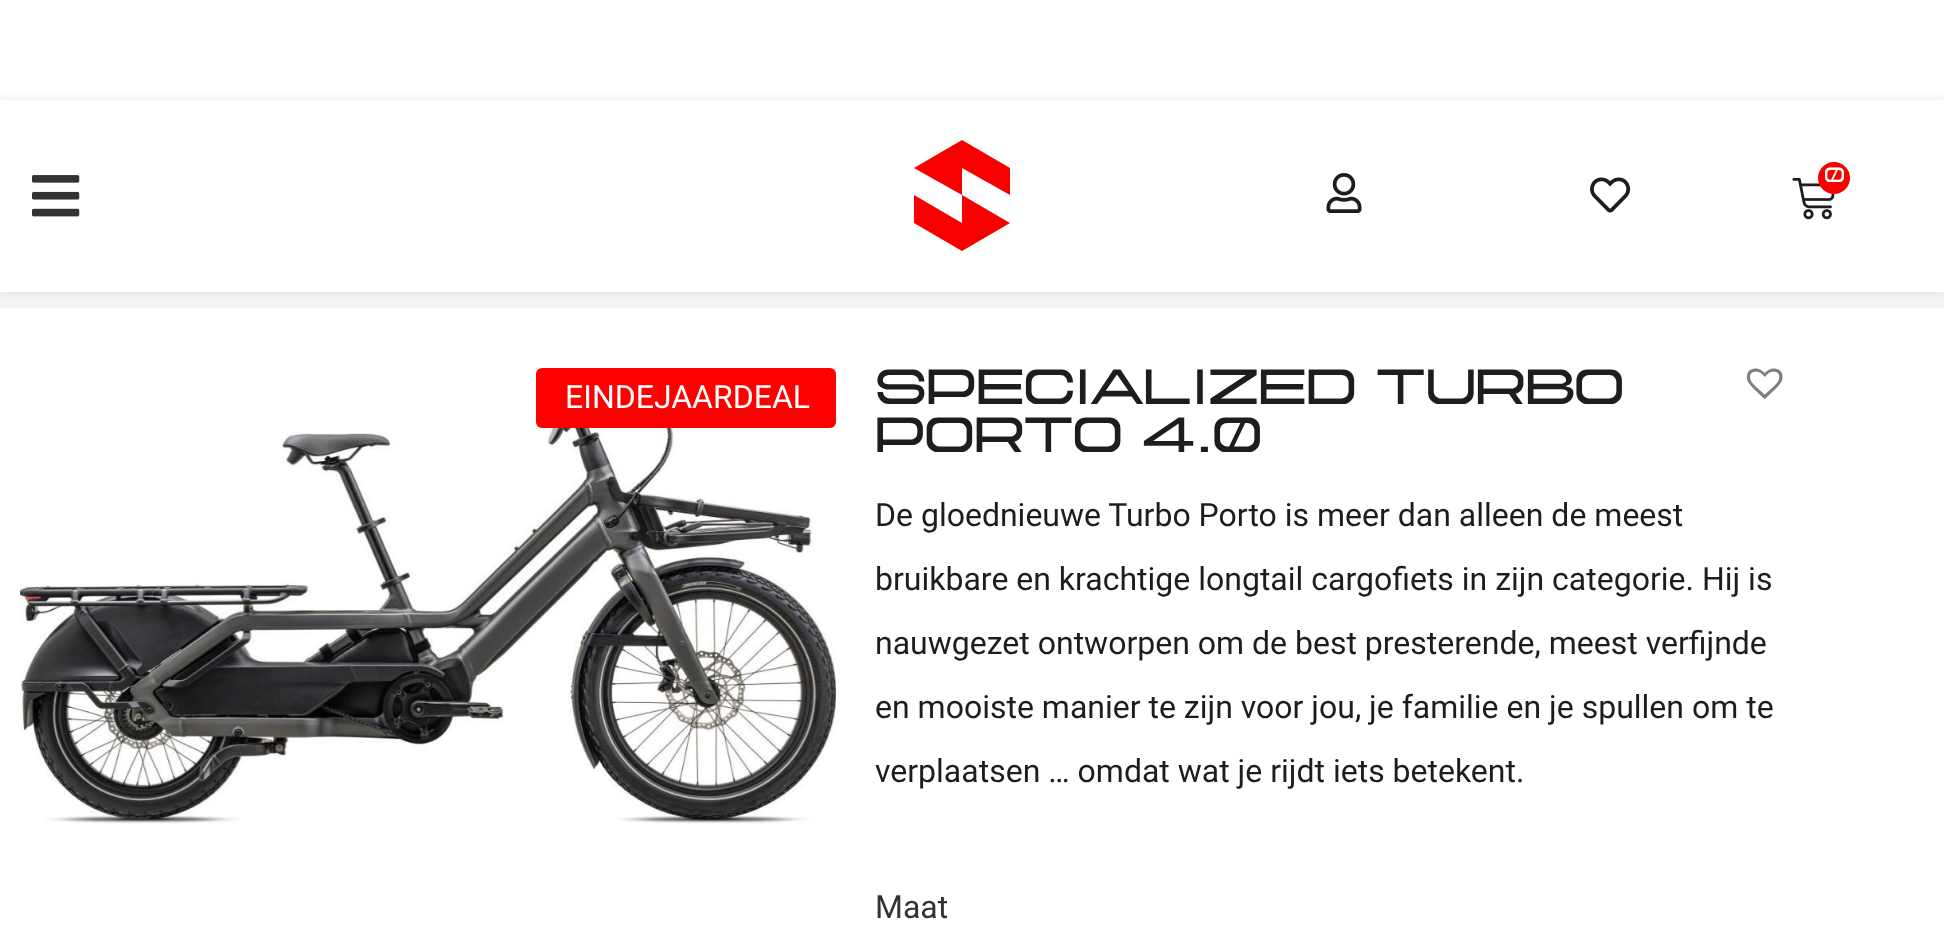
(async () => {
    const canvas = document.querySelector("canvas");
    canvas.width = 1944;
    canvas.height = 933;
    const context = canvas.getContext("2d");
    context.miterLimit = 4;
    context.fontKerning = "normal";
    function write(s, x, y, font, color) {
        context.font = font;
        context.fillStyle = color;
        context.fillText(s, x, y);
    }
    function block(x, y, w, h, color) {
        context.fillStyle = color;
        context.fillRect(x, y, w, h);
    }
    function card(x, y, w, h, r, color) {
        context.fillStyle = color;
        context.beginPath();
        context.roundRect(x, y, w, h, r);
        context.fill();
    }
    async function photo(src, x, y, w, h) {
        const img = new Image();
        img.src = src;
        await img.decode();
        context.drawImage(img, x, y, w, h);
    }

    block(0, 0, 1944, 933, "rgb(255, 255, 255)");
    block(0, 292, 1944, 16, "rgb(245, 244, 244)");
    context.fillStyle = "rgba(0, 0, 0, 0.1)";
    context.filter = "blur(4px)";
    context.beginPath();
    context.rect(0, 100, 1944, 192);
    context.fill();
    context.filter = "none";
    block(0, 100, 1944, 192, "rgb(255, 255, 255)");
    await photo("media/1.png", 32, 175, 48, 42);
    context.fillStyle = "rgb(249, 0, 0)";
    context.beginPath();
    context.moveTo(1010, 168);
    context.lineTo(1010, 195);
    context.lineTo(962, 168);
    context.lineTo(962, 195);
    context.lineTo(914, 168);
    context.lineTo(962, 140);
    context.closePath();
    context.fill();
    context.beginPath();
    context.moveTo(1010, 223);
    context.lineTo(962, 251);
    context.lineTo(914, 223);
    context.lineTo(914, 195);
    context.lineTo(962, 223);
    context.lineTo(962, 195);
    context.closePath();
    context.fill();
    await photo("media/2.png", 1326, 173, 36, 40);
    await photo("media/3.png", 1590, 177, 41, 36);
    await photo("media/4.png", 1792, 177, 43, 43);
    context.beginPath();
    context.arc(1834, 178, 16, 0, Math.PI * 2);
    context.fill();
    write("0", 1824, 182, "500 20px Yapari", "rgb(255, 255, 255)");
    await photo("media/5.png", 20, 368, 816, 456);
    card(536, 368, 300, 60, 6, "rgb(255, 0, 0)");
    write("EINDEJAARDEAL", 565, 408, "32px Roboto", "rgb(255, 255, 255)");
    write("SPECIALIZED TURBO", 875, 404, "500 48px Yapari", "rgb(29, 29, 27)");
    write("PORTO 4.0", 875, 452, "500 48px Yapari", "rgb(29, 29, 27)");
    await photo("media/6.png", 1746, 368, 37, 31);
    write("De gloednieuwe Turbo Porto is meer dan alleen de meest", 875, 526, "32px Roboto", "rgb(29, 29, 27)");
    write("bruikbare en krachtige longtail cargofiets in zijn categorie. Hij is", 875, 590, "32px Roboto", "rgb(29, 29, 27)");
    write("nauwgezet ontworpen om de best presterende, meest verfijnde", 875, 654, "32px Roboto", "rgb(29, 29, 27)");
    write("en mooiste manier te zijn voor jou, je familie en je spullen om te", 875, 718, "32px Roboto", "rgb(29, 29, 27)");
    write("verplaatsen … omdat wat je rijdt iets betekent.", 875, 782, "32px Roboto", "rgb(29, 29, 27)");
    write("Maat", 875, 918, "32px Roboto", "rgb(51, 51, 51)");
})();
